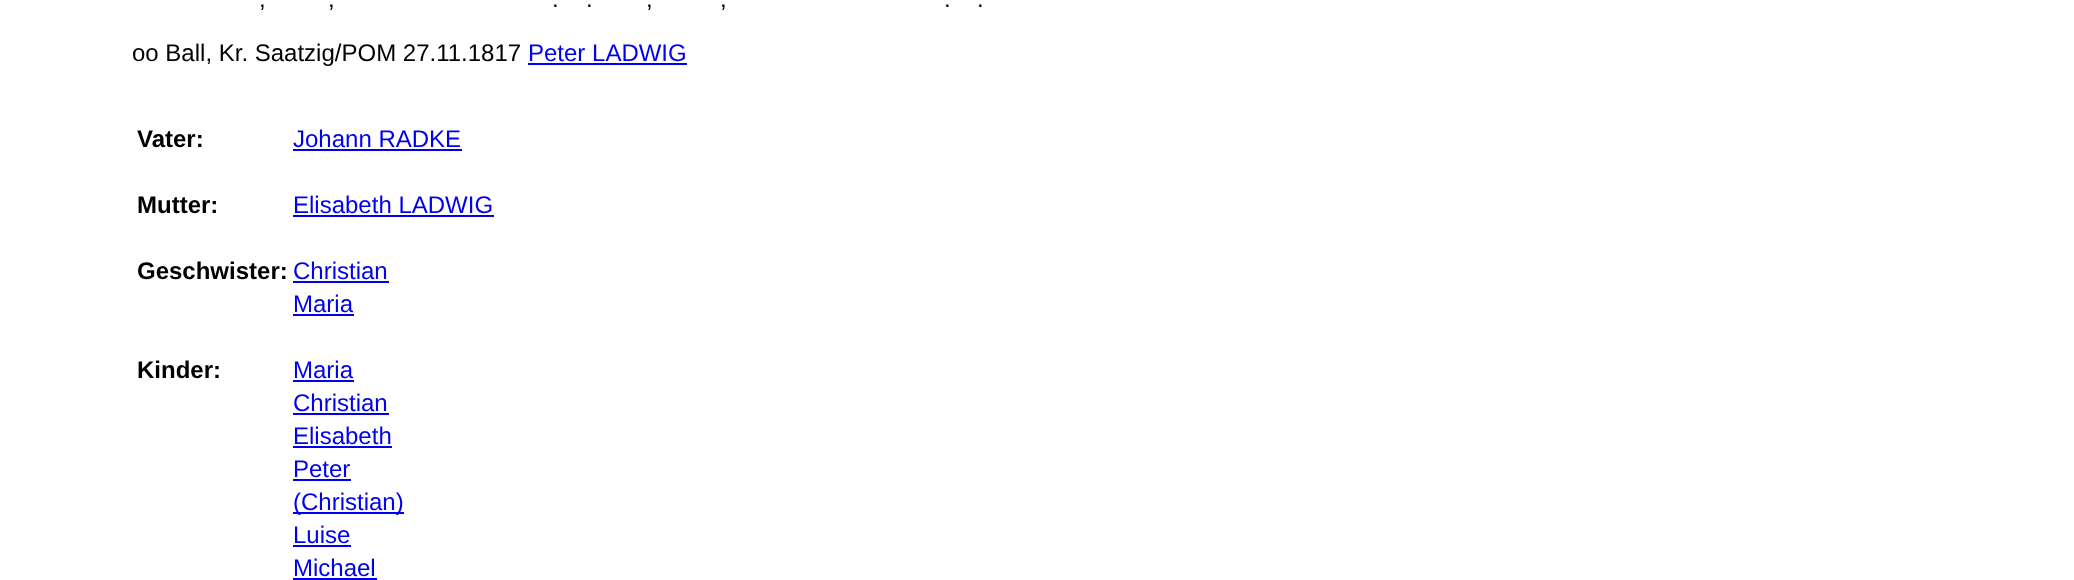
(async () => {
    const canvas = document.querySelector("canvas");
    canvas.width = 2074;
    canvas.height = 580;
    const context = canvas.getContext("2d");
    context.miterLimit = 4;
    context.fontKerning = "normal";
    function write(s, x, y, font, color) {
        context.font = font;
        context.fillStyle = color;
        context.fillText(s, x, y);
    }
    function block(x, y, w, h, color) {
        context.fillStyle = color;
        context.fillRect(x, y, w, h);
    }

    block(0, 0, 2074, 580, "rgb(255, 255, 255)");
    write(",", 259, 7, "24px Liberation Sans", "rgb(0, 0, 0)");
    write(",", 328, 7, "24px Liberation Sans", "rgb(0, 0, 0)");
    write(".", 552, 7, "24px Liberation Sans", "rgb(0, 0, 0)");
    write(".", 586, 7, "24px Liberation Sans", "rgb(0, 0, 0)");
    write(",", 646, 7, "24px Liberation Sans", "rgb(0, 0, 0)");
    write(",", 720, 7, "24px Liberation Sans", "rgb(0, 0, 0)");
    write(".", 944, 7, "24px Liberation Sans", "rgb(0, 0, 0)");
    write(".", 977, 7, "24px Liberation Sans", "rgb(0, 0, 0)");
    write("oo Ball, Kr. Saatzig/POM 27.11.1817", 132, 61, "24px Liberation Sans", "rgb(0, 0, 0)");
    write("Peter LADWIG", 528, 61, "24px Liberation Sans", "rgb(0, 0, 238)");
    block(528, 63, 159, 2, "rgb(0, 0, 238)");
    write("Vater:", 137, 147, "bold 24px Liberation Sans", "rgb(0, 0, 0)");
    write("Johann RADKE", 293, 147, "24px Liberation Sans", "rgb(0, 0, 238)");
    block(293, 149, 169, 2, "rgb(0, 0, 238)");
    write("Mutter:", 137, 213, "bold 24px Liberation Sans", "rgb(0, 0, 0)");
    write("Elisabeth LADWIG", 293, 213, "24px Liberation Sans", "rgb(0, 0, 238)");
    block(293, 215, 201, 2, "rgb(0, 0, 238)");
    write("Geschwister:", 137, 279, "bold 24px Liberation Sans", "rgb(0, 0, 0)");
    write("Christian", 293, 279, "24px Liberation Sans", "rgb(0, 0, 238)");
    block(293, 281, 96, 2, "rgb(0, 0, 238)");
    write("Maria", 293, 312, "24px Liberation Sans", "rgb(0, 0, 238)");
    block(293, 314, 61, 2, "rgb(0, 0, 238)");
    write("Kinder:", 137, 378, "bold 24px Liberation Sans", "rgb(0, 0, 0)");
    write("Maria", 293, 378, "24px Liberation Sans", "rgb(0, 0, 238)");
    block(293, 380, 61, 2, "rgb(0, 0, 238)");
    write("Christian", 293, 411, "24px Liberation Sans", "rgb(0, 0, 238)");
    block(293, 413, 96, 2, "rgb(0, 0, 238)");
    write("Elisabeth", 293, 444, "24px Liberation Sans", "rgb(0, 0, 238)");
    block(293, 446, 99, 2, "rgb(0, 0, 238)");
    write("Peter", 293, 477, "24px Liberation Sans", "rgb(0, 0, 238)");
    block(293, 479, 58, 2, "rgb(0, 0, 238)");
    block(293, 512, 111, 2, "rgb(0, 0, 238)");
    write("(Christian)", 293, 510, "24px Liberation Sans", "rgb(0, 0, 238)");
    write("Luise", 293, 543, "24px Liberation Sans", "rgb(0, 0, 238)");
    block(293, 545, 58, 2, "rgb(0, 0, 238)");
    write("Michael", 293, 576, "24px Liberation Sans", "rgb(0, 0, 238)");
    block(293, 578, 84, 2, "rgb(0, 0, 238)");
})();
